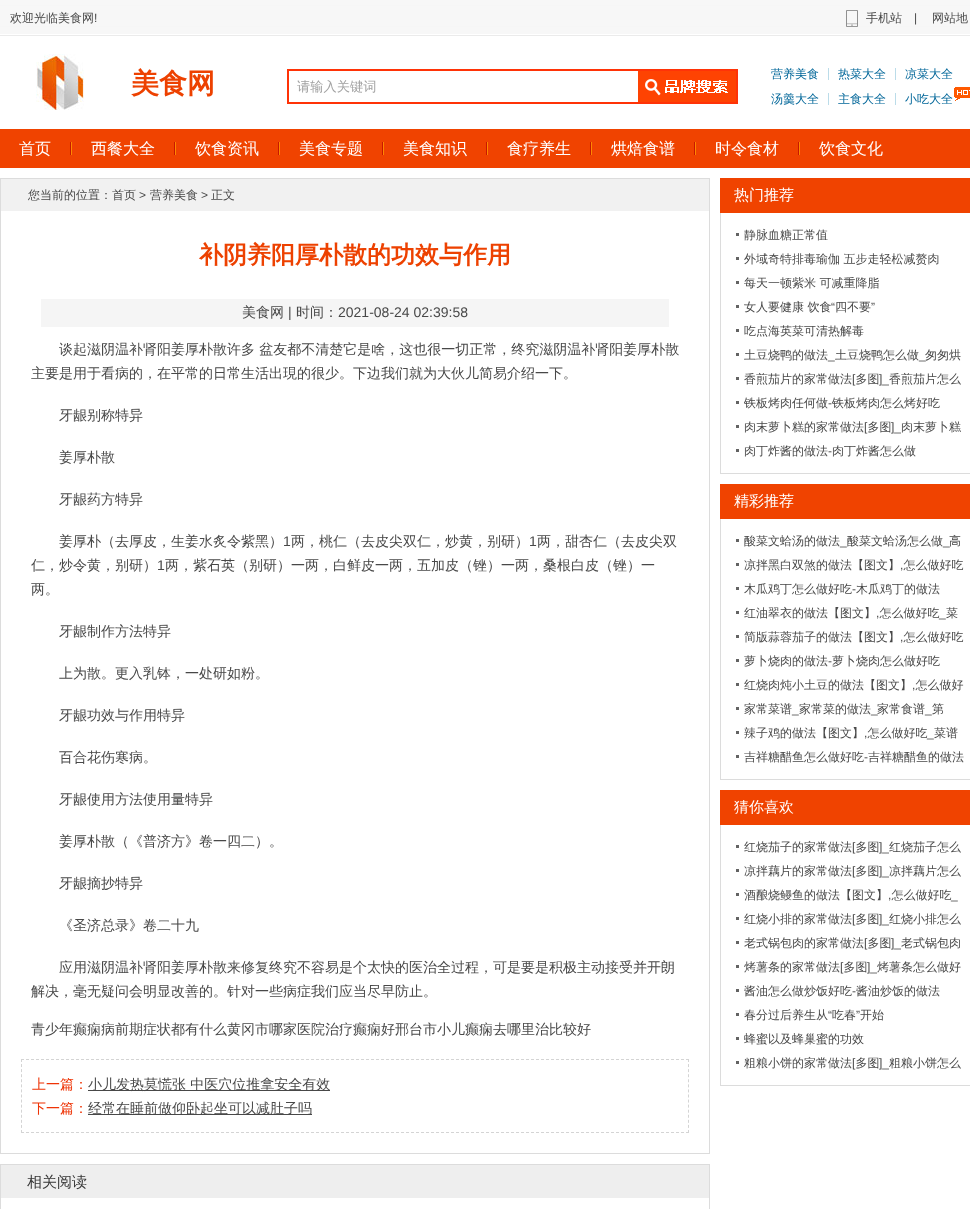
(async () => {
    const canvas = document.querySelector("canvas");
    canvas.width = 970;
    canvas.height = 1209;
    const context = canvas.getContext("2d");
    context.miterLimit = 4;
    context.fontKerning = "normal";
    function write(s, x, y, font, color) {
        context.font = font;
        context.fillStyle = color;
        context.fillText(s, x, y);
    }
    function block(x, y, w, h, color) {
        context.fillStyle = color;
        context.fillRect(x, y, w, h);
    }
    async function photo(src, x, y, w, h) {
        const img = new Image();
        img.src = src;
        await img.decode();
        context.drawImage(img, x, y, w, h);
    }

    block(0, 0, 970, 1209, "rgb(255, 255, 255)");
    await photo("media/1.png", 0, 0, 970, 36);
    write("欢迎光临美食网", 10, 22, "500 12px WenQuanYi Zen Hei", "rgb(72, 72, 72)");
    write("!", 94, 22, "12px Liberation Sans", "rgb(72, 72, 72)");
    await photo("media/2.png", 846, 10, 12, 17);
    write("手机站", 866, 22, "500 12px WenQuanYi Zen Hei", "rgb(72, 72, 72)");
    write("|", 914, 22, "12px Liberation Sans", "rgb(72, 72, 72)");
    write("网站地", 932, 22, "500 12px WenQuanYi Zen Hei", "rgb(72, 72, 72)");
    await photo("media/3.png", 36, 54, 48, 56);
    write("美食网", 131, 93, "bold 28px WenQuanYi Zen Hei", "rgb(237, 65, 0)");
    context.strokeStyle = "rgb(255, 51, 7)";
    context.lineWidth = 2;
    context.strokeRect(288, 70, 449, 33);
    write("请输入关键词", 297, 91, "500 13.25px WenQuanYi Zen Hei", "rgb(162, 162, 162)");
    await photo("media/4.png", 638, 71, 98, 31);
    write("营养美食", 771, 78, "500 12px WenQuanYi Zen Hei", "rgb(0, 102, 153)");
    block(828, 68, 1, 12, "rgb(187, 220, 233)");
    write("热菜大全", 838, 78, "500 12px WenQuanYi Zen Hei", "rgb(0, 102, 153)");
    block(895, 68, 1, 12, "rgb(187, 220, 233)");
    write("凉菜大全", 905, 78, "500 12px WenQuanYi Zen Hei", "rgb(0, 102, 153)");
    write("汤羹大全", 771, 103, "500 12px WenQuanYi Zen Hei", "rgb(0, 102, 153)");
    block(828, 93, 1, 12, "rgb(187, 220, 233)");
    write("主食大全", 838, 103, "500 12px WenQuanYi Zen Hei", "rgb(0, 102, 153)");
    block(895, 93, 1, 12, "rgb(187, 220, 233)");
    write("小吃大全", 905, 103, "500 12px WenQuanYi Zen Hei", "rgb(0, 102, 153)");
    await photo("media/5.png", 954, 87, 16, 14);
    block(0, 129, 970, 39, "rgb(240, 67, 0)");
    write("首页", 19, 154, "500 16px WenQuanYi Zen Hei", "rgb(255, 255, 255)");
    await photo("media/6.png", 70, 142, 2, 13);
    write("西餐大全", 91, 154, "500 16px WenQuanYi Zen Hei", "rgb(255, 255, 255)");
    await photo("media/6.png", 174, 142, 2, 13);
    write("饮食资讯", 195, 154, "500 16px WenQuanYi Zen Hei", "rgb(255, 255, 255)");
    await photo("media/6.png", 278, 142, 2, 13);
    write("美食专题", 299, 154, "500 16px WenQuanYi Zen Hei", "rgb(255, 255, 255)");
    await photo("media/6.png", 382, 142, 2, 13);
    write("美食知识", 403, 154, "500 16px WenQuanYi Zen Hei", "rgb(255, 255, 255)");
    await photo("media/6.png", 486, 142, 2, 13);
    write("食疗养生", 507, 154, "500 16px WenQuanYi Zen Hei", "rgb(255, 255, 255)");
    await photo("media/6.png", 590, 142, 2, 13);
    write("烘焙食谱", 611, 154, "500 16px WenQuanYi Zen Hei", "rgb(255, 255, 255)");
    await photo("media/6.png", 694, 142, 2, 13);
    write("时令食材", 715, 154, "500 16px WenQuanYi Zen Hei", "rgb(255, 255, 255)");
    await photo("media/6.png", 798, 142, 2, 13);
    write("饮食文化", 819, 154, "500 16px WenQuanYi Zen Hei", "rgb(255, 255, 255)");
    context.strokeStyle = "rgb(220, 220, 220)";
    context.lineWidth = 1;
    context.strokeRect(0.5, 178.5, 709, 975);
    block(1, 179, 708, 32, "rgb(241, 241, 241)");
    write("您当前的位置：首页", 28, 199, "500 12px WenQuanYi Zen Hei", "rgb(72, 72, 72)");
    write(">", 139, 199, "12px Liberation Sans", "rgb(72, 72, 72)");
    write("营养美食", 150, 199, "500 12px WenQuanYi Zen Hei", "rgb(72, 72, 72)");
    write(">", 201, 199, "12px Liberation Sans", "rgb(72, 72, 72)");
    write("正文", 211, 199, "500 12px WenQuanYi Zen Hei", "rgb(72, 72, 72)");
    write("补阴养阳厚朴散的功效与作用", 199, 263, "bold 24px WenQuanYi Zen Hei", "rgb(237, 65, 0)");
    block(41, 299, 628, 28, "rgb(245, 245, 245)");
    write("美食网", 242, 317, "500 14px WenQuanYi Zen Hei", "rgb(72, 72, 72)");
    write("|", 288, 317, "14px Liberation Sans", "rgb(72, 72, 72)");
    write("时间：", 296, 317, "500 14px WenQuanYi Zen Hei", "rgb(72, 72, 72)");
    write("2021-08-24 02:39:58", 338, 317, "14px Liberation Sans", "rgb(72, 72, 72)");
    write("谈起滋阴温补肾阳姜厚朴散许多 盆友都不清楚它是啥，这也很一切正常，终究滋阴温补肾阳姜厚朴散", 59, 354, "500 14px WenQuanYi Zen Hei", "rgb(72, 72, 72)");
    write("主要是用于看病的，在平常的日常生活出現的很少。下边我们就为大伙儿简易介绍一下。", 31, 378, "500 14px WenQuanYi Zen Hei", "rgb(72, 72, 72)");
    write("牙龈别称特异", 59, 420, "500 14px WenQuanYi Zen Hei", "rgb(72, 72, 72)");
    write("姜厚朴散", 59, 462, "500 14px WenQuanYi Zen Hei", "rgb(72, 72, 72)");
    write("牙龈药方特异", 59, 504, "500 14px WenQuanYi Zen Hei", "rgb(72, 72, 72)");
    write("姜厚朴（去厚皮，生姜水炙令紫黑）", 59, 546, "500 14px WenQuanYi Zen Hei", "rgb(72, 72, 72)");
    write("1", 283, 546, "14px Liberation Sans", "rgb(72, 72, 72)");
    write("两，桃仁（去皮尖双仁，炒黄，别研）", 291, 546, "500 14px WenQuanYi Zen Hei", "rgb(72, 72, 72)");
    write("1", 529, 546, "14px Liberation Sans", "rgb(72, 72, 72)");
    write("两，甜杏仁（去皮尖双", 537, 546, "500 14px WenQuanYi Zen Hei", "rgb(72, 72, 72)");
    write("仁，炒令黄，别研）", 31, 570, "500 14px WenQuanYi Zen Hei", "rgb(72, 72, 72)");
    write("1", 157, 570, "14px Liberation Sans", "rgb(72, 72, 72)");
    write("两，紫石英（别研）一两，白鲜皮一两，五加皮（锉）一两，桑根白皮（锉）一", 165, 570, "500 14px WenQuanYi Zen Hei", "rgb(72, 72, 72)");
    write("两。", 31, 594, "500 14px WenQuanYi Zen Hei", "rgb(72, 72, 72)");
    write("牙龈制作方法特异", 59, 636, "500 14px WenQuanYi Zen Hei", "rgb(72, 72, 72)");
    write("上为散。更入乳钵，一处研如粉。", 59, 678, "500 14px WenQuanYi Zen Hei", "rgb(72, 72, 72)");
    write("牙龈功效与作用特异", 59, 720, "500 14px WenQuanYi Zen Hei", "rgb(72, 72, 72)");
    write("百合花伤寒病。", 59, 762, "500 14px WenQuanYi Zen Hei", "rgb(72, 72, 72)");
    write("牙龈使用方法使用量特异", 59, 804, "500 14px WenQuanYi Zen Hei", "rgb(72, 72, 72)");
    write("姜厚朴散（《普济方》卷一四二）。", 59, 846, "500 14px WenQuanYi Zen Hei", "rgb(72, 72, 72)");
    write("牙龈摘抄特异", 59, 888, "500 14px WenQuanYi Zen Hei", "rgb(72, 72, 72)");
    write("《圣济总录》卷二十九", 59, 930, "500 14px WenQuanYi Zen Hei", "rgb(72, 72, 72)");
    write("应用滋阴温补肾阳姜厚朴散来修复终究不容易是个太快的医治全过程，可是要是积极主动接受并开朗", 59, 972, "500 14px WenQuanYi Zen Hei", "rgb(72, 72, 72)");
    write("解决，毫无疑问会明显改善的。针对一些病症我们应当尽早防止。", 31, 996, "500 14px WenQuanYi Zen Hei", "rgb(72, 72, 72)");
    write("青少年癫痫病前期症状都有什么黄冈市哪家医院治疗癫痫好邢台市小儿癫痫去哪里治比较好", 31, 1034, "500 14px WenQuanYi Zen Hei", "rgb(72, 72, 72)");
    context.beginPath();
    context.moveTo(21, 1059.5);
    context.lineTo(689, 1059.5);
    context.strokeStyle = "rgb(212, 212, 212)";
    context.setLineDash([3, 2]);
    context.stroke();
    context.beginPath();
    context.moveTo(688.5, 1059);
    context.lineTo(688.5, 1133);
    context.setLineDash([3, 2.07]);
    context.stroke();
    context.beginPath();
    context.moveTo(21, 1132.5);
    context.lineTo(689, 1132.5);
    context.setLineDash([3, 2]);
    context.stroke();
    context.beginPath();
    context.moveTo(21.5, 1059);
    context.lineTo(21.5, 1133);
    context.setLineDash([3, 2.07]);
    context.stroke();
    write("上一篇：", 32, 1089, "500 14px WenQuanYi Zen Hei", "rgb(238, 52, 6)");
    block(88, 1090, 242, 1, "rgb(72, 72, 72)");
    write("小儿发热莫慌张 中医穴位推拿安全有效", 88, 1089, "500 14px WenQuanYi Zen Hei", "rgb(72, 72, 72)");
    write("下一篇：", 32, 1113, "500 14px WenQuanYi Zen Hei", "rgb(238, 52, 6)");
    block(88, 1114, 224, 1, "rgb(72, 72, 72)");
    write("经常在睡前做仰卧起坐可以减肚子吗", 88, 1113, "500 14px WenQuanYi Zen Hei", "rgb(72, 72, 72)");
    context.strokeStyle = "rgb(220, 220, 220)";
    context.setLineDash([]);
    context.strokeRect(0.5, 1164.5, 709, 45);
    block(1, 1165, 708, 33, "rgb(238, 238, 238)");
    write("相关阅读", 27, 1187, "500 15px WenQuanYi Zen Hei", "rgb(54, 54, 54)");
    block(720, 178, 250, 35, "rgb(240, 67, 0)");
    write("热门推荐", 734, 200, "500 15px WenQuanYi Zen Hei", "rgb(255, 255, 255)");
    block(720, 473, 250, 1, "rgb(220, 220, 220)");
    block(720, 213, 1, 261, "rgb(220, 220, 220)");
    block(736, 233, 3, 3, "rgb(99, 99, 99)");
    write("静脉血糖正常值", 744, 239, "500 12px WenQuanYi Zen Hei", "rgb(72, 72, 72)");
    block(736, 257, 3, 3, "rgb(99, 99, 99)");
    write("外域奇特排毒瑜伽 五步走轻松减赘肉", 744, 263, "500 12px WenQuanYi Zen Hei", "rgb(72, 72, 72)");
    block(736, 281, 3, 3, "rgb(99, 99, 99)");
    write("每天一顿紫米 可减重降脂", 744, 287, "500 12px WenQuanYi Zen Hei", "rgb(72, 72, 72)");
    block(736, 305, 3, 3, "rgb(99, 99, 99)");
    write("女人要健康 饮食", 744, 311, "500 12px WenQuanYi Zen Hei", "rgb(72, 72, 72)");
    write("“", 831, 311, "12px Liberation Sans", "rgb(72, 72, 72)");
    write("四不要", 835, 311, "500 12px WenQuanYi Zen Hei", "rgb(72, 72, 72)");
    write("”", 871, 311, "12px Liberation Sans", "rgb(72, 72, 72)");
    block(736, 329, 3, 3, "rgb(99, 99, 99)");
    write("吃点海英菜可清热解毒", 744, 335, "500 12px WenQuanYi Zen Hei", "rgb(72, 72, 72)");
    block(736, 353, 3, 3, "rgb(99, 99, 99)");
    write("土豆烧鸭的做法", 744, 359, "500 12px WenQuanYi Zen Hei", "rgb(72, 72, 72)");
    write("_", 828, 359, "12px Liberation Sans", "rgb(72, 72, 72)");
    write("土豆烧鸭怎么做", 835, 359, "500 12px WenQuanYi Zen Hei", "rgb(72, 72, 72)");
    write("_", 919, 359, "12px Liberation Sans", "rgb(72, 72, 72)");
    write("匆匆烘", 925, 359, "500 12px WenQuanYi Zen Hei", "rgb(72, 72, 72)");
    block(736, 377, 3, 3, "rgb(99, 99, 99)");
    write("香煎茄片的家常做法 多图", 744, 383, "500 12px WenQuanYi Zen Hei", "rgb(72, 72, 72)");
    write("]_", 879, 383, "12px Liberation Sans", "rgb(72, 72, 72)");
    write("香煎茄片怎么", 889, 383, "500 12px WenQuanYi Zen Hei", "rgb(72, 72, 72)");
    write("[", 852, 383, "12px Liberation Sans", "rgb(72, 72, 72)");
    block(736, 401, 3, 3, "rgb(99, 99, 99)");
    write("铁板烤肉任何做", 744, 407, "500 12px WenQuanYi Zen Hei", "rgb(72, 72, 72)");
    write("-", 828, 407, "12px Liberation Sans", "rgb(72, 72, 72)");
    write("铁板烤肉怎么烤好吃", 832, 407, "500 12px WenQuanYi Zen Hei", "rgb(72, 72, 72)");
    block(736, 425, 3, 3, "rgb(99, 99, 99)");
    write("肉末萝卜糕的家常做法 多图", 744, 431, "500 12px WenQuanYi Zen Hei", "rgb(72, 72, 72)");
    write("肉末萝卜糕", 901, 431, "500 12px WenQuanYi Zen Hei", "rgb(72, 72, 72)");
    write("[", 864, 431, "12px Liberation Sans", "rgb(72, 72, 72)");
    write("]_", 891, 431, "12px Liberation Sans", "rgb(72, 72, 72)");
    block(736, 449, 3, 3, "rgb(99, 99, 99)");
    write("肉丁炸酱的做法", 744, 455, "500 12px WenQuanYi Zen Hei", "rgb(72, 72, 72)");
    write("-", 828, 455, "12px Liberation Sans", "rgb(72, 72, 72)");
    write("肉丁炸酱怎么做", 832, 455, "500 12px WenQuanYi Zen Hei", "rgb(72, 72, 72)");
    block(720, 484, 250, 35, "rgb(240, 67, 0)");
    write("精彩推荐", 734, 506, "500 15px WenQuanYi Zen Hei", "rgb(255, 255, 255)");
    block(720, 779, 250, 1, "rgb(220, 220, 220)");
    block(720, 519, 1, 261, "rgb(220, 220, 220)");
    block(736, 539, 3, 3, "rgb(99, 99, 99)");
    write("酸菜文蛤汤的做法", 744, 545, "500 12px WenQuanYi Zen Hei", "rgb(72, 72, 72)");
    write("_", 840, 545, "12px Liberation Sans", "rgb(72, 72, 72)");
    write("酸菜文蛤汤怎么做", 847, 545, "500 12px WenQuanYi Zen Hei", "rgb(72, 72, 72)");
    write("_", 943, 545, "12px Liberation Sans", "rgb(72, 72, 72)");
    write("高", 949, 545, "500 12px WenQuanYi Zen Hei", "rgb(72, 72, 72)");
    block(736, 563, 3, 3, "rgb(99, 99, 99)");
    write("凉拌黑白双煞的做法【图文】 怎么做好吃", 744, 569, "500 12px WenQuanYi Zen Hei", "rgb(72, 72, 72)");
    write(",", 900, 569, "12px Liberation Sans", "rgb(72, 72, 72)");
    block(736, 587, 3, 3, "rgb(99, 99, 99)");
    write("木瓜鸡丁怎么做好吃", 744, 593, "500 12px WenQuanYi Zen Hei", "rgb(72, 72, 72)");
    write("-", 852, 593, "12px Liberation Sans", "rgb(72, 72, 72)");
    write("木瓜鸡丁的做法", 856, 593, "500 12px WenQuanYi Zen Hei", "rgb(72, 72, 72)");
    block(736, 611, 3, 3, "rgb(99, 99, 99)");
    write("红油翠衣的做法【图文】 怎么做好吃", 744, 617, "500 12px WenQuanYi Zen Hei", "rgb(72, 72, 72)");
    write("_", 939, 617, "12px Liberation Sans", "rgb(72, 72, 72)");
    write("菜", 946, 617, "500 12px WenQuanYi Zen Hei", "rgb(72, 72, 72)");
    write(",", 876, 617, "12px Liberation Sans", "rgb(72, 72, 72)");
    block(736, 635, 3, 3, "rgb(99, 99, 99)");
    write("简版蒜蓉茄子的做法【图文】 怎么做好吃", 744, 641, "500 12px WenQuanYi Zen Hei", "rgb(72, 72, 72)");
    write(",", 900, 641, "12px Liberation Sans", "rgb(72, 72, 72)");
    block(736, 659, 3, 3, "rgb(99, 99, 99)");
    write("萝卜烧肉的做法", 744, 665, "500 12px WenQuanYi Zen Hei", "rgb(72, 72, 72)");
    write("-", 828, 665, "12px Liberation Sans", "rgb(72, 72, 72)");
    write("萝卜烧肉怎么做好吃", 832, 665, "500 12px WenQuanYi Zen Hei", "rgb(72, 72, 72)");
    block(736, 683, 3, 3, "rgb(99, 99, 99)");
    write("红烧肉炖小土豆的做法【图文】 怎么做好", 744, 689, "500 12px WenQuanYi Zen Hei", "rgb(72, 72, 72)");
    write(",", 912, 689, "12px Liberation Sans", "rgb(72, 72, 72)");
    block(736, 707, 3, 3, "rgb(99, 99, 99)");
    write("家常菜谱", 744, 713, "500 12px WenQuanYi Zen Hei", "rgb(72, 72, 72)");
    write("_", 792, 713, "12px Liberation Sans", "rgb(72, 72, 72)");
    write("家常菜的做法", 799, 713, "500 12px WenQuanYi Zen Hei", "rgb(72, 72, 72)");
    write("_", 871, 713, "12px Liberation Sans", "rgb(72, 72, 72)");
    write("家常食谱", 877, 713, "500 12px WenQuanYi Zen Hei", "rgb(72, 72, 72)");
    write("_", 925, 713, "12px Liberation Sans", "rgb(72, 72, 72)");
    write("第", 932, 713, "500 12px WenQuanYi Zen Hei", "rgb(72, 72, 72)");
    block(736, 731, 3, 3, "rgb(99, 99, 99)");
    write("辣子鸡的做法【图文】 怎么做好吃", 744, 737, "500 12px WenQuanYi Zen Hei", "rgb(72, 72, 72)");
    write("_", 927, 737, "12px Liberation Sans", "rgb(72, 72, 72)");
    write("菜谱", 934, 737, "500 12px WenQuanYi Zen Hei", "rgb(72, 72, 72)");
    write(",", 864, 737, "12px Liberation Sans", "rgb(72, 72, 72)");
    block(736, 755, 3, 3, "rgb(99, 99, 99)");
    write("吉祥糖醋鱼怎么做好吃", 744, 761, "500 12px WenQuanYi Zen Hei", "rgb(72, 72, 72)");
    write("-", 864, 761, "12px Liberation Sans", "rgb(72, 72, 72)");
    write("吉祥糖醋鱼的做法", 868, 761, "500 12px WenQuanYi Zen Hei", "rgb(72, 72, 72)");
    block(720, 790, 250, 35, "rgb(240, 67, 0)");
    write("猜你喜欢", 734, 812, "500 15px WenQuanYi Zen Hei", "rgb(255, 255, 255)");
    block(720, 1085, 250, 1, "rgb(220, 220, 220)");
    block(720, 825, 1, 261, "rgb(220, 220, 220)");
    block(736, 845, 3, 3, "rgb(99, 99, 99)");
    write("红烧茄子的家常做法 多图", 744, 851, "500 12px WenQuanYi Zen Hei", "rgb(72, 72, 72)");
    write("]_", 879, 851, "12px Liberation Sans", "rgb(72, 72, 72)");
    write("红烧茄子怎么", 889, 851, "500 12px WenQuanYi Zen Hei", "rgb(72, 72, 72)");
    write("[", 852, 851, "12px Liberation Sans", "rgb(72, 72, 72)");
    block(736, 869, 3, 3, "rgb(99, 99, 99)");
    write("凉拌藕片的家常做法 多图", 744, 875, "500 12px WenQuanYi Zen Hei", "rgb(72, 72, 72)");
    write("]_", 879, 875, "12px Liberation Sans", "rgb(72, 72, 72)");
    write("凉拌藕片怎么", 889, 875, "500 12px WenQuanYi Zen Hei", "rgb(72, 72, 72)");
    write("[", 852, 875, "12px Liberation Sans", "rgb(72, 72, 72)");
    block(736, 893, 3, 3, "rgb(99, 99, 99)");
    write("酒酿烧鳗鱼的做法【图文】 怎么做好吃", 744, 899, "500 12px WenQuanYi Zen Hei", "rgb(72, 72, 72)");
    write(",", 888, 899, "12px Liberation Sans", "rgb(72, 72, 72)");
    write("_", 951, 899, "12px Liberation Sans", "rgb(72, 72, 72)");
    block(736, 917, 3, 3, "rgb(99, 99, 99)");
    write("红烧小排的家常做法 多图", 744, 923, "500 12px WenQuanYi Zen Hei", "rgb(72, 72, 72)");
    write("]_", 879, 923, "12px Liberation Sans", "rgb(72, 72, 72)");
    write("红烧小排怎么", 889, 923, "500 12px WenQuanYi Zen Hei", "rgb(72, 72, 72)");
    write("[", 852, 923, "12px Liberation Sans", "rgb(72, 72, 72)");
    block(736, 941, 3, 3, "rgb(99, 99, 99)");
    write("老式锅包肉的家常做法 多图", 744, 947, "500 12px WenQuanYi Zen Hei", "rgb(72, 72, 72)");
    write("]_", 891, 947, "12px Liberation Sans", "rgb(72, 72, 72)");
    write("老式锅包肉", 901, 947, "500 12px WenQuanYi Zen Hei", "rgb(72, 72, 72)");
    write("[", 864, 947, "12px Liberation Sans", "rgb(72, 72, 72)");
    block(736, 965, 3, 3, "rgb(99, 99, 99)");
    write("烤薯条的家常做法 多图", 744, 971, "500 12px WenQuanYi Zen Hei", "rgb(72, 72, 72)");
    write("]_", 867, 971, "12px Liberation Sans", "rgb(72, 72, 72)");
    write("烤薯条怎么做好", 877, 971, "500 12px WenQuanYi Zen Hei", "rgb(72, 72, 72)");
    write("[", 840, 971, "12px Liberation Sans", "rgb(72, 72, 72)");
    block(736, 989, 3, 3, "rgb(99, 99, 99)");
    write("酱油怎么做炒饭好吃", 744, 995, "500 12px WenQuanYi Zen Hei", "rgb(72, 72, 72)");
    write("-", 852, 995, "12px Liberation Sans", "rgb(72, 72, 72)");
    write("酱油炒饭的做法", 856, 995, "500 12px WenQuanYi Zen Hei", "rgb(72, 72, 72)");
    block(736, 1013, 3, 3, "rgb(99, 99, 99)");
    write("春分过后养生从", 744, 1019, "500 12px WenQuanYi Zen Hei", "rgb(72, 72, 72)");
    write("“", 828, 1019, "12px Liberation Sans", "rgb(72, 72, 72)");
    write("吃春", 832, 1019, "500 12px WenQuanYi Zen Hei", "rgb(72, 72, 72)");
    write("”", 856, 1019, "12px Liberation Sans", "rgb(72, 72, 72)");
    write("开始", 860, 1019, "500 12px WenQuanYi Zen Hei", "rgb(72, 72, 72)");
    block(736, 1037, 3, 3, "rgb(99, 99, 99)");
    write("蜂蜜以及蜂巢蜜的功效", 744, 1043, "500 12px WenQuanYi Zen Hei", "rgb(72, 72, 72)");
    block(736, 1061, 3, 3, "rgb(99, 99, 99)");
    write("粗粮小饼的家常做法 多图", 744, 1067, "500 12px WenQuanYi Zen Hei", "rgb(72, 72, 72)");
    write("]_", 879, 1067, "12px Liberation Sans", "rgb(72, 72, 72)");
    write("粗粮小饼怎么", 889, 1067, "500 12px WenQuanYi Zen Hei", "rgb(72, 72, 72)");
    write("[", 852, 1067, "12px Liberation Sans", "rgb(72, 72, 72)");
})();
